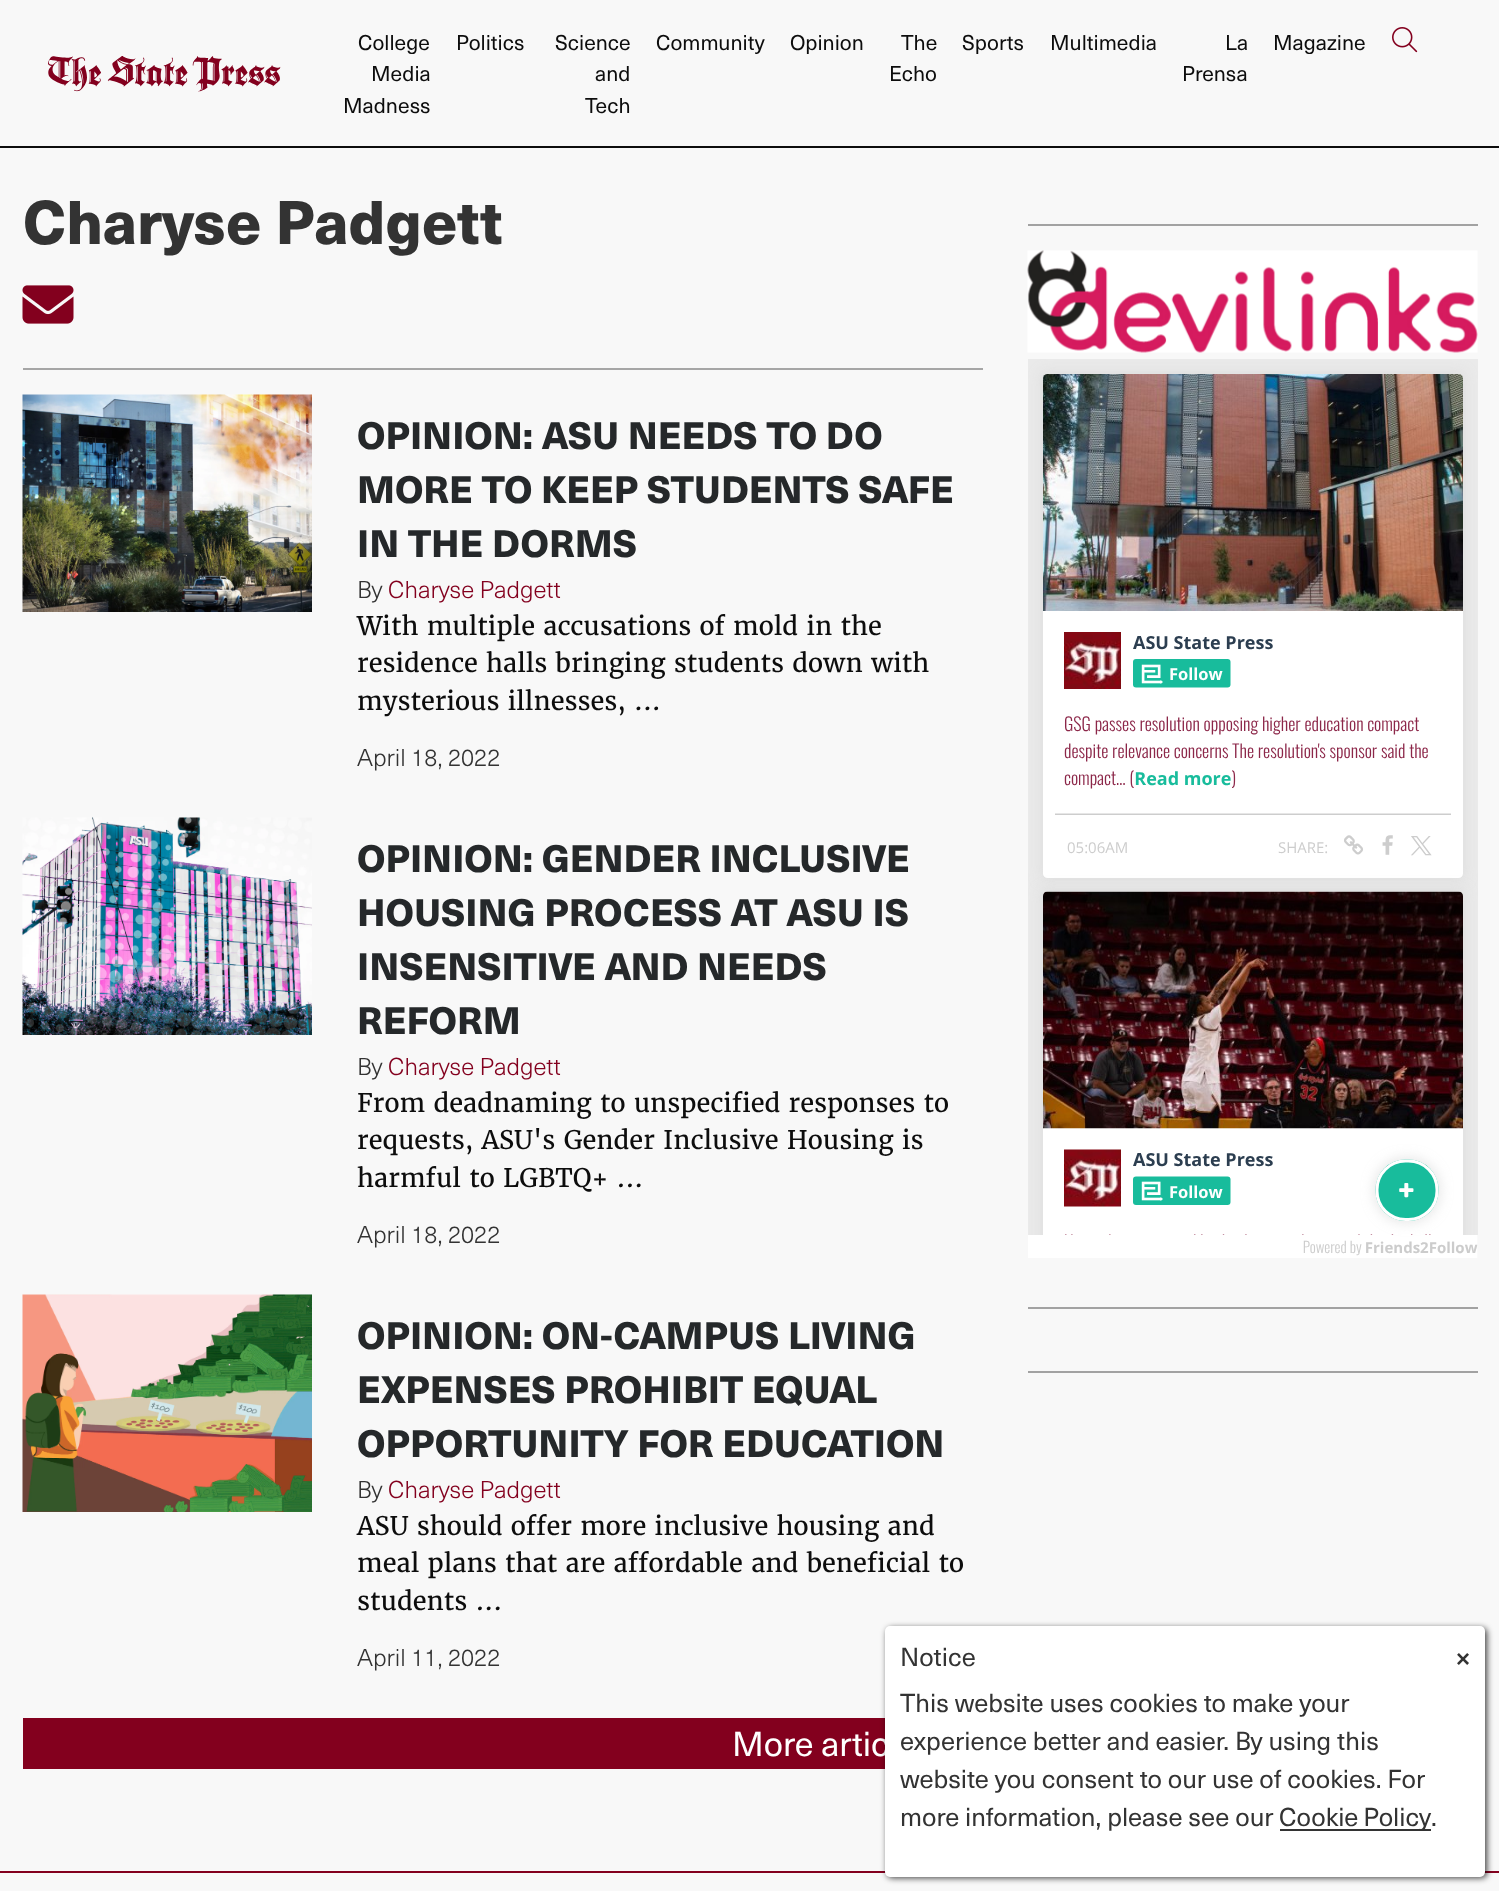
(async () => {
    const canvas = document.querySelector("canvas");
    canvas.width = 1499;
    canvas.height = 1891;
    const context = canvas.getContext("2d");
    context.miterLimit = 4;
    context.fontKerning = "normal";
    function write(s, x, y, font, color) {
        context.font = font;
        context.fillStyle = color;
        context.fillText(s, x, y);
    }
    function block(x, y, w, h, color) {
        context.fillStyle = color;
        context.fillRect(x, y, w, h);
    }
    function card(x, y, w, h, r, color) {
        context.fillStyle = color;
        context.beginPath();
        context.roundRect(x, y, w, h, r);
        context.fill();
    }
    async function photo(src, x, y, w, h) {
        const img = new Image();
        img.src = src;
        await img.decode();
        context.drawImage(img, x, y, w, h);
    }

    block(0, 0, 1499, 1891, "rgb(248, 248, 248)");
    block(0, 146, 1499, 2, "rgb(13, 13, 13)");
    await photo("media/1.png", 48, 56, 233, 36);
    write("College", 358, 50, "21px 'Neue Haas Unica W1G'", "rgb(13, 13, 13)");
    write("Media", 371, 81, "21px 'Neue Haas Unica W1G'", "rgb(13, 13, 13)");
    write("Madness", 343, 113, "21px 'Neue Haas Unica W1G'", "rgb(13, 13, 13)");
    write("Politics", 456, 50, "21px 'Neue Haas Unica W1G'", "rgb(13, 13, 13)");
    write("Science", 555, 50, "21px 'Neue Haas Unica W1G'", "rgb(13, 13, 13)");
    write("and", 595, 81, "21px 'Neue Haas Unica W1G'", "rgb(13, 13, 13)");
    write("Tech", 585, 113, "21px 'Neue Haas Unica W1G'", "rgb(13, 13, 13)");
    write("Community", 656, 50, "21px 'Neue Haas Unica W1G'", "rgb(13, 13, 13)");
    write("Opinion", 790, 50, "21px 'Neue Haas Unica W1G'", "rgb(13, 13, 13)");
    write("The", 901, 50, "21px 'Neue Haas Unica W1G'", "rgb(13, 13, 13)");
    write("Echo", 889, 81, "21px 'Neue Haas Unica W1G'", "rgb(13, 13, 13)");
    write("Sports", 962, 50, "21px 'Neue Haas Unica W1G'", "rgb(13, 13, 13)");
    write("Multimedia", 1050, 50, "21px 'Neue Haas Unica W1G'", "rgb(13, 13, 13)");
    write("La", 1225, 50, "21px 'Neue Haas Unica W1G'", "rgb(13, 13, 13)");
    write("Prensa", 1182, 81, "21px 'Neue Haas Unica W1G'", "rgb(13, 13, 13)");
    write("Magazine", 1273, 50, "21px 'Neue Haas Unica W1G'", "rgb(13, 13, 13)");
    await photo("media/2.png", 1392, 27, 26, 26);
    write("Charyse Padgett", 23, 244, "900 60.5px 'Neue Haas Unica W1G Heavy'", "rgb(51, 51, 51)");
    await photo("media/3.png", 22, 285, 52, 39);
    block(23, 368, 960, 2, "rgb(166, 166, 166)");
    await photo("media/4.png", 22, 394, 290, 218);
    write("OPINION: ASU NEEDS TO DO", 357, 449, "900 37.5px 'Neue Haas Unica W1G Heavy'", "rgb(37, 40, 42)");
    write("MORE TO KEEP STUDENTS SAFE", 357, 503, "900 37.5px 'Neue Haas Unica W1G Heavy'", "rgb(37, 40, 42)");
    write("IN THE DORMS", 357, 557, "900 37.5px 'Neue Haas Unica W1G Heavy'", "rgb(37, 40, 42)");
    write("By", 357, 598, "300 24px 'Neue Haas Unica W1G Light'", "rgb(51, 51, 51)");
    write("Charyse Padgett", 388, 598, "300 24px 'Neue Haas Unica W1G Light'", "rgb(131, 0, 30)");
    write("With multiple accusations of mold in the", 357, 635, "25.5px Merriweather", "rgb(13, 13, 13)");
    write("residence halls bringing students down with", 357, 672, "25.5px Merriweather", "rgb(13, 13, 13)");
    write("mysterious illnesses, ...", 357, 710, "25.5px Merriweather", "rgb(13, 13, 13)");
    write("April 18, 2022", 357, 766, "300 24px 'Neue Haas Unica W1G Light'", "rgb(51, 51, 51)");
    await photo("media/5.png", 22, 817, 290, 218);
    write("OPINION: GENDER INCLUSIVE", 357, 872, "900 37.5px 'Neue Haas Unica W1G Heavy'", "rgb(37, 40, 42)");
    write("HOUSING PROCESS AT ASU IS", 357, 926, "900 37.5px 'Neue Haas Unica W1G Heavy'", "rgb(37, 40, 42)");
    write("INSENSITIVE AND NEEDS", 357, 980, "900 37.5px 'Neue Haas Unica W1G Heavy'", "rgb(37, 40, 42)");
    write("REFORM", 357, 1034, "900 37.5px 'Neue Haas Unica W1G Heavy'", "rgb(37, 40, 42)");
    write("By", 357, 1075, "300 24px 'Neue Haas Unica W1G Light'", "rgb(51, 51, 51)");
    write("Charyse Padgett", 388, 1075, "300 24px 'Neue Haas Unica W1G Light'", "rgb(131, 0, 30)");
    write("From deadnaming to unspecified responses to", 357, 1112, "25.5px Merriweather", "rgb(13, 13, 13)");
    write("requests, ASU's Gender Inclusive Housing is", 357, 1149, "25.5px Merriweather", "rgb(13, 13, 13)");
    write("harmful to LGBTQ+ ...", 357, 1187, "25.5px Merriweather", "rgb(13, 13, 13)");
    write("April 18, 2022", 357, 1243, "300 24px 'Neue Haas Unica W1G Light'", "rgb(51, 51, 51)");
    await photo("media/6.png", 22, 1294, 290, 218);
    write("OPINION: ON-CAMPUS LIVING", 357, 1349, "900 37.5px 'Neue Haas Unica W1G Heavy'", "rgb(37, 40, 42)");
    write("EXPENSES PROHIBIT EQUAL", 357, 1403, "900 37.5px 'Neue Haas Unica W1G Heavy'", "rgb(37, 40, 42)");
    write("OPPORTUNITY FOR EDUCATION", 357, 1457, "900 37.5px 'Neue Haas Unica W1G Heavy'", "rgb(37, 40, 42)");
    write("By", 357, 1498, "300 24px 'Neue Haas Unica W1G Light'", "rgb(51, 51, 51)");
    write("Charyse Padgett", 388, 1498, "300 24px 'Neue Haas Unica W1G Light'", "rgb(131, 0, 30)");
    write("ASU should offer more inclusive housing and", 357, 1535, "25.5px Merriweather", "rgb(13, 13, 13)");
    write("meal plans that are affordable and beneficial to", 357, 1572, "25.5px Merriweather", "rgb(13, 13, 13)");
    write("students ...", 357, 1610, "25.5px Merriweather", "rgb(13, 13, 13)");
    write("April 11, 2022", 357, 1666, "300 24px 'Neue Haas Unica W1G Light'", "rgb(51, 51, 51)");
    block(23, 1718, 862, 51, "rgb(131, 0, 30)");
    write("More artic", 732, 1756, "34px 'Neue Haas Unica W1G'", "rgb(255, 255, 255)");
    block(1028, 224, 450, 2, "rgb(162, 162, 162)");
    await photo("media/7.png", 1027, 250, 451, 103);
    await photo("media/8.png", 1028, 359, 450, 899);
    block(1028, 1307, 450, 2, "rgb(162, 162, 162)");
    block(1028, 1371, 450, 2, "rgb(162, 162, 162)");
    block(0, 1871, 1499, 2, "rgb(131, 0, 30)");
    context.fillStyle = "rgba(0, 0, 0, 0.75)";
    context.filter = "blur(3px)";
    context.beginPath();
    context.roundRect(887, 1628, 600, 250, 5);
    context.fill();
    context.filter = "none";
    card(885, 1626, 600, 251, 5, "rgb(255, 255, 255)");
    write("Notice", 900, 1666, "25.5px 'Neue Haas Unica W1G'", "rgb(51, 51, 51)");
    write("This website uses cookies to make your", 900, 1712, "25.5px 'Neue Haas Unica W1G'", "rgb(51, 51, 51)");
    write("experience better and easier. By using this", 900, 1750, "25.5px 'Neue Haas Unica W1G'", "rgb(51, 51, 51)");
    write("website you consent to our use of cookies. For", 900, 1788, "25.5px 'Neue Haas Unica W1G'", "rgb(51, 51, 51)");
    write("more information, please see our", 900, 1826, "25.5px 'Neue Haas Unica W1G'", "rgb(51, 51, 51)");
    block(1280, 1829, 151, 2, "rgb(51, 51, 51)");
    context.wordSpacing = "-1px";
    write("Cookie Policy", 1279, 1826, "25.5px 'Neue Haas Unica W1G'", "rgb(51, 51, 51)");
    context.wordSpacing = "0px";
    write(".", 1431, 1826, "25.5px 'Neue Haas Unica W1G'", "rgb(51, 51, 51)");
    write("×", 1456, 1667, "bold 24px Liberation Sans", "rgb(51, 51, 51)");
})();
